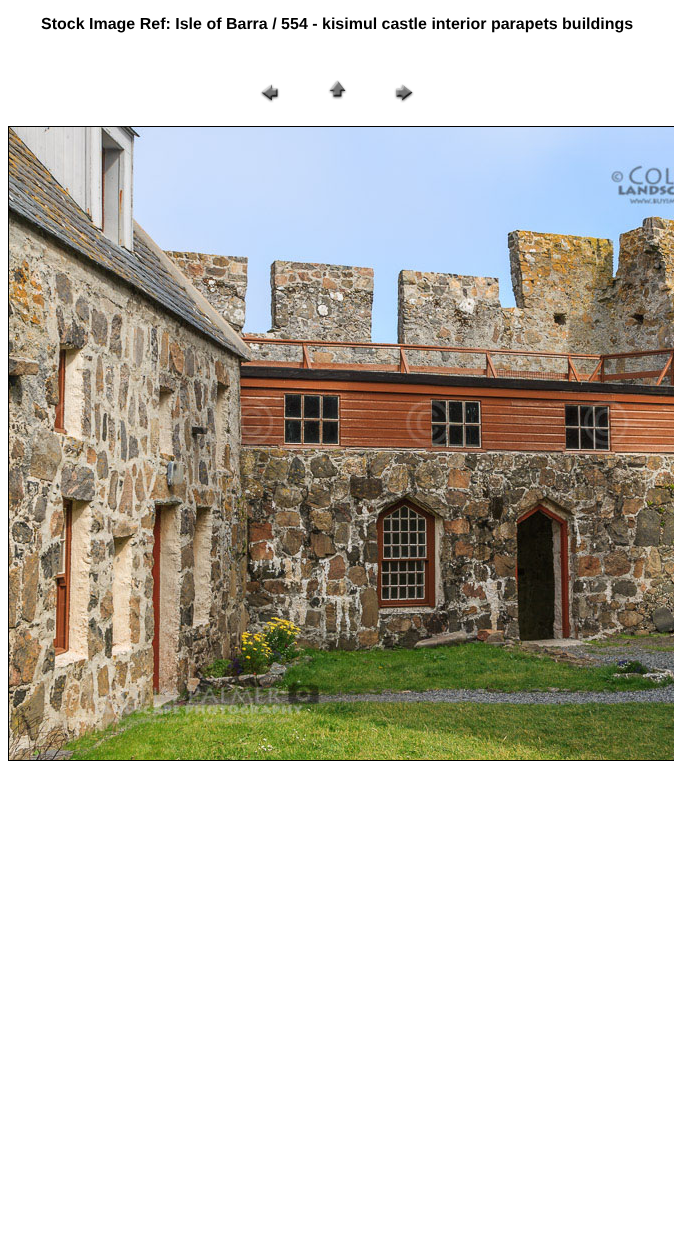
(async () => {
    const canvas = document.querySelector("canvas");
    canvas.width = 674;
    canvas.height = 1253;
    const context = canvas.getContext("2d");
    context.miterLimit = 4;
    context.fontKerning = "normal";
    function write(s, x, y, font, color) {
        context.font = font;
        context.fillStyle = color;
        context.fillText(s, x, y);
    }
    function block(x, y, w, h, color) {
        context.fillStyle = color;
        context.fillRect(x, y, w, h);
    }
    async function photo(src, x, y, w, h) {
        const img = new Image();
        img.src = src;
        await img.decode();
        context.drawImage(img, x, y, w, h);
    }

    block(0, 0, 674, 1253, "rgb(255, 255, 255)");
    write("Stock Image Ref: Isle of Barra / 554 - kisimul castle interior parapets buildings", 41, 29, "bold 16px Liberation Sans", "rgb(0, 0, 0)");
    await photo("media/1.png", 260, 84, 20, 19);
    await photo("media/2.png", 328, 80, 19, 20);
    await photo("media/3.png", 394, 84, 20, 19);
    context.strokeStyle = "rgb(0, 0, 0)";
    context.strokeRect(8.5, 126.5, 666, 634);
    await photo("media/4.png", 9, 127, 665, 633);
})();
